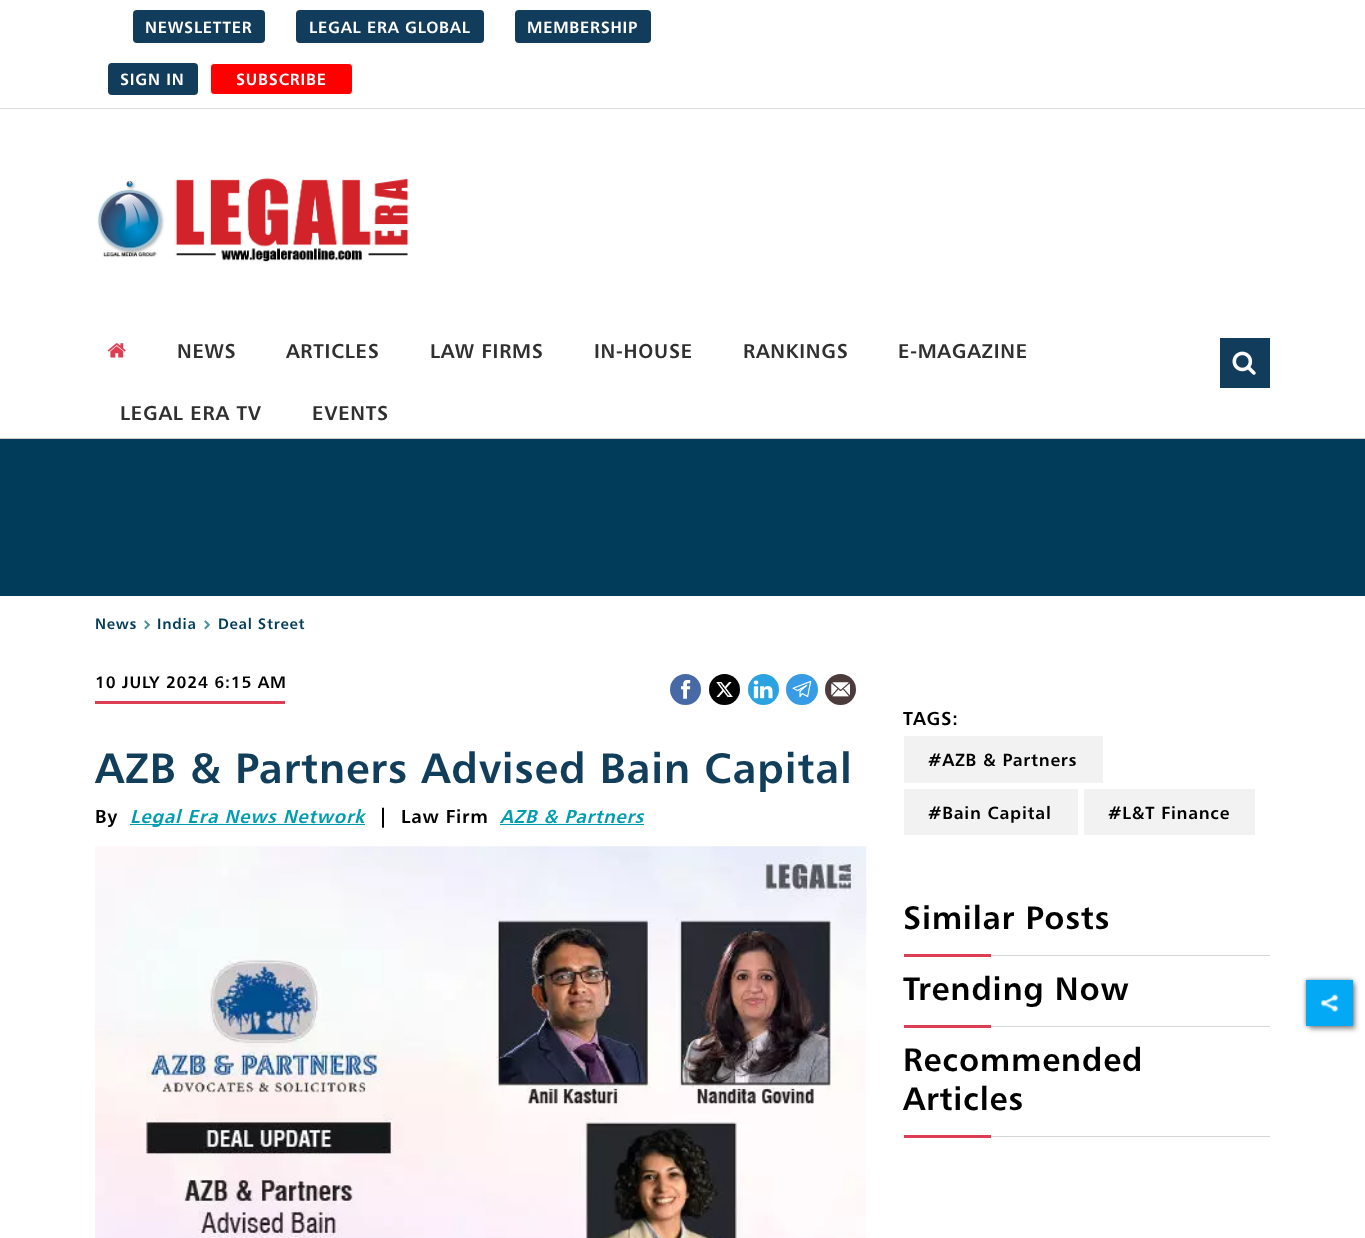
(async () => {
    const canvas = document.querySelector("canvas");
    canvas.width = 1365;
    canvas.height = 1238;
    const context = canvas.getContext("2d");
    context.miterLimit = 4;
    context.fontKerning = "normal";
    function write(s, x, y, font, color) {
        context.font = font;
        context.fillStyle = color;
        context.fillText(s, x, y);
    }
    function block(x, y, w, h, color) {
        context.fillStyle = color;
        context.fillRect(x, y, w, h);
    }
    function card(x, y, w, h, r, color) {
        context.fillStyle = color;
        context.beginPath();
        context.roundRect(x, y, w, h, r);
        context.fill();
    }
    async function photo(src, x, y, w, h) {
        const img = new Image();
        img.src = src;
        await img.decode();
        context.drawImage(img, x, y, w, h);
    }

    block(0, 0, 1365, 1238, "rgb(255, 255, 255)");
    block(0, 438, 1365, 1, "rgb(204, 204, 204)");
    block(0, 108, 1365, 1, "rgb(220, 220, 220)");
    card(133, 10, 132, 33, 4, "rgb(18, 60, 91)");
    context.letterSpacing = "0.75px";
    write("NEWSLETTER", 145, 33, "bold 16.25px 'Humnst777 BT'", "rgb(255, 255, 255)");
    card(296, 10, 188, 33, 4, "rgb(18, 60, 91)");
    write("LEGAL ERA GLOBAL", 309, 33, "bold 16.25px 'Humnst777 BT'", "rgb(255, 255, 255)");
    card(515, 10, 136, 33, 4, "rgb(18, 60, 91)");
    write("MEMBERSHIP", 527, 33, "bold 16.25px 'Humnst777 BT'", "rgb(255, 255, 255)");
    card(108, 63, 90, 32, 4, "rgb(18, 60, 92)");
    write("SIGN IN", 120, 85, "bold 16.25px 'Humnst777 BT'", "rgb(255, 255, 255)");
    context.fillStyle = "rgb(255, 0, 0)";
    context.beginPath();
    context.roundRect(210.5, 63.5, 142, 31, 3.5);
    context.fill();
    context.strokeStyle = "rgb(255, 255, 255)";
    context.stroke();
    write("SUBSCRIBE", 236, 85, "bold 16.25px 'Humnst777 BT'", "rgb(255, 255, 255)");
    await photo("media/1.png", 97, 177, 311, 85);
    await photo("media/2.png", 107, 343, 19, 15);
    write("NEWS", 177, 358, "bold 20px 'Humnst777 BT'", "rgb(48, 48, 48)");
    write("ARTICLES", 286, 358, "bold 20px 'Humnst777 BT'", "rgb(48, 48, 48)");
    write("LAW FIRMS", 430, 358, "bold 20px 'Humnst777 BT'", "rgb(48, 48, 48)");
    write("IN-HOUSE", 594, 358, "bold 20px 'Humnst777 BT'", "rgb(48, 48, 48)");
    write("RANKINGS", 743, 358, "bold 20px 'Humnst777 BT'", "rgb(48, 48, 48)");
    write("E-MAGAZINE", 898, 358, "bold 20px 'Humnst777 BT'", "rgb(48, 48, 48)");
    write("LEGAL ERA TV", 120, 420, "bold 20px 'Humnst777 BT'", "rgb(48, 48, 48)");
    write("EVENTS", 312, 420, "bold 20px 'Humnst777 BT'", "rgb(48, 48, 48)");
    block(1220, 338, 50, 50, "rgb(18, 60, 91)");
    await photo("media/3.png", 1232, 351, 24, 24);
    block(0, 439, 1365, 157, "rgb(2, 60, 91)");
    write("News", 95, 629, "bold 15px 'Humnst777 BT'", "rgb(2, 60, 91)");
    await photo("media/4.png", 144, 620, 6, 10);
    write("India", 157, 629, "bold 15px 'Humnst777 BT'", "rgb(2, 60, 91)");
    await photo("media/4.png", 204, 620, 6, 10);
    write("Deal Street", 218, 629, "bold 15px 'Humnst777 BT'", "rgb(2, 60, 91)");
    write("10 JULY 2024 6:15 AM", 95, 688, "bold 16.75px 'Humnst777 BT'", "rgb(0, 0, 0)");
    block(95, 701, 190, 3, "rgb(222, 62, 83)");
    context.fillStyle = "rgb(71, 105, 165)";
    context.beginPath();
    context.arc(685.5, 689.5, 15.5, 0, Math.PI * 2);
    context.fill();
    await photo("media/5.png", 680, 680, 11, 19);
    context.fillStyle = "rgb(0, 0, 0)";
    context.beginPath();
    context.arc(724.5, 689.5, 15.5, 0, Math.PI * 2);
    context.fill();
    await photo("media/6.png", 716, 682, 17, 15);
    context.fillStyle = "rgb(43, 163, 225)";
    context.beginPath();
    context.arc(763.5, 689.5, 15.5, 0, Math.PI * 2);
    context.fill();
    await photo("media/7.png", 753, 680, 20, 19);
    card(786, 674, 32, 31, 15.5, "rgb(55, 155, 229)");
    await photo("media/8.png", 792, 680, 20, 18);
    context.fillStyle = "rgb(75, 59, 59)";
    context.beginPath();
    context.arc(840.5, 689.5, 15.5, 0, Math.PI * 2);
    context.fill();
    await photo("media/9.png", 831, 682, 19, 15);
    write("AZB & Partners Advised Bain Capital", 95, 783, "bold 42.5px 'Humnst777 BT'", "rgb(17, 62, 91)");
    write("By", 95, 823, "bold 18.75px 'Humnst777 BT'", "rgb(0, 0, 0)");
    block(130, 824, 235, 1, "rgb(0, 157, 175)");
    write("Legal Era News Network", 130, 823, "italic bold 18.75px 'Humnst777 BT'", "rgb(0, 157, 175)");
    write("|", 378, 823, "bold 20px 'Humnst777 BT'", "rgb(0, 0, 0)");
    write("Law Firm", 401, 823, "bold 18.75px 'Humnst777 BT'", "rgb(0, 0, 0)");
    write("AZB & Partners", 500, 823, "italic bold 18.75px 'Humnst777 BT'", "rgb(0, 157, 175)");
    block(500, 824, 144, 1, "rgb(0, 157, 175)");
    await photo("media/10.png", 95, 846, 772, 392);
    write("TAGS:", 903, 725, "bold 18.75px 'Humnst777 BT'", "rgb(0, 0, 0)");
    block(904, 736, 199, 47, "rgb(242, 242, 242)");
    write("#AZB & Partners", 928, 766, "bold 17.5px 'Humnst777 BT'", "rgb(0, 0, 0)");
    block(904, 789, 174, 46, "rgb(242, 242, 242)");
    write("#Bain Capital", 928, 819, "bold 17.5px 'Humnst777 BT'", "rgb(0, 0, 0)");
    block(1084, 789, 171, 46, "rgb(242, 242, 242)");
    write("#L&T Finance", 1108, 819, "bold 17.5px 'Humnst777 BT'", "rgb(0, 0, 0)");
    block(991, 955, 279, 1, "rgb(214, 214, 214)");
    write("Similar Posts", 903, 929, "bold 32.5px 'Humnst777 BT'", "rgb(0, 0, 0)");
    block(904, 954, 87, 3, "rgb(222, 62, 83)");
    block(991, 1026, 279, 1, "rgb(214, 214, 214)");
    write("Trending Now", 903, 1000, "bold 32.5px 'Humnst777 BT'", "rgb(0, 0, 0)");
    block(904, 1025, 87, 3, "rgb(222, 62, 83)");
    block(991, 1136, 279, 1, "rgb(214, 214, 214)");
    write("Recommended", 903, 1071, "bold 32.5px 'Humnst777 BT'", "rgb(0, 0, 0)");
    write("Articles", 903, 1110, "bold 32.5px 'Humnst777 BT'", "rgb(0, 0, 0)");
    block(904, 1135, 87, 3, "rgb(222, 62, 83)");
    context.fillStyle = "rgba(0, 0, 0, 0.25)";
    context.filter = "blur(2px)";
    context.beginPath();
    context.rect(1310, 984, 46, 46);
    context.fill();
    context.filter = "none";
    context.fillStyle = "rgba(0, 0, 0, 0.5)";
    context.filter = "blur(2px)";
    context.beginPath();
    context.rect(1306, 980, 47, 46);
    context.fill();
    context.filter = "none";
    block(1306, 980, 47, 46, "rgb(3, 169, 244)");
    await photo("media/11.png", 1320, 994, 19, 18);
})();
